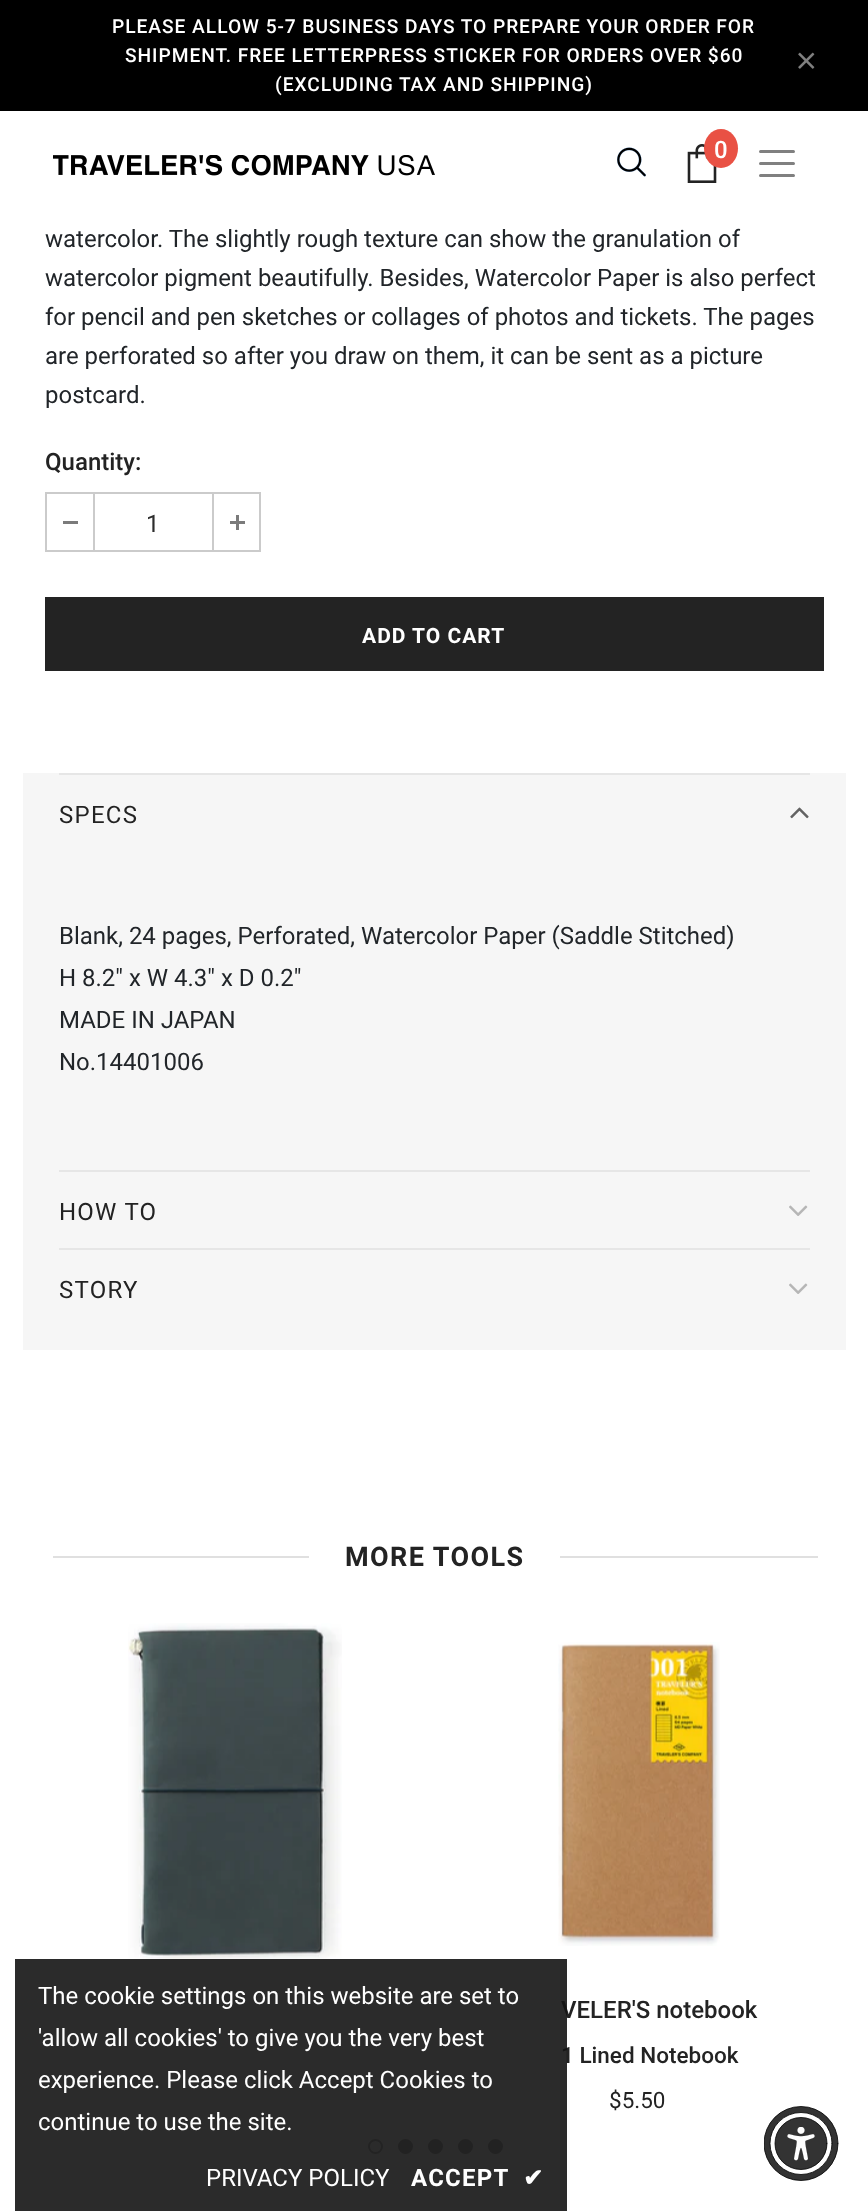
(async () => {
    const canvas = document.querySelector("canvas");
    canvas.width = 868;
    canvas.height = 2211;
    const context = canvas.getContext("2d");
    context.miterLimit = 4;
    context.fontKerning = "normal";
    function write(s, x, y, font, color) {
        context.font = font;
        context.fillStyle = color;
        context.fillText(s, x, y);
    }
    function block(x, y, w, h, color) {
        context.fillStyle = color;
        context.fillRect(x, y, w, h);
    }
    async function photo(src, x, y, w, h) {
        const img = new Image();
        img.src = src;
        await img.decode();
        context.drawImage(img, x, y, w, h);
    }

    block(0, 0, 868, 2211, "rgb(255, 255, 255)");
    block(0, 0, 868, 111, "rgb(0, 0, 0)");
    context.letterSpacing = "0.95px";
    write("PLEASE ALLOW 5-7 BUSINESS DAYS TO PREPARE YOUR ORDER FOR", 112, 33, "500 19.2px Roboto", "rgb(255, 255, 255)");
    write("SHIPMENT. FREE LETTERPRESS STICKER FOR ORDERS OVER $60", 125, 62, "500 19.2px Roboto", "rgb(255, 255, 255)");
    write("(EXCLUDING TAX AND SHIPPING)", 275, 91, "500 19.2px Roboto", "rgb(255, 255, 255)");
    await photo("media/1.png", 798, 52, 17, 17);
    await photo("media/2.png", 617, 147, 29, 30);
    await photo("media/3.png", 687, 144, 30, 39);
    context.fillStyle = "rgb(233, 81, 68)";
    context.beginPath();
    context.ellipse(721, 148.5, 17, 19.5, 0, 0, Math.PI * 2);
    context.fill();
    context.letterSpacing = "0px";
    write("0", 714, 158, "500 24px Roboto", "rgb(255, 255, 255)");
    context.beginPath();
    context.moveTo(760.5, 151.5);
    context.lineTo(793.5, 151.5);
    context.moveTo(760.5, 163.5);
    context.lineTo(793.5, 163.5);
    context.moveTo(760.5, 175.5);
    context.lineTo(793.5, 175.5);
    context.strokeStyle = "rgb(128, 128, 128)";
    context.lineWidth = 3;
    context.lineCap = "round";
    context.stroke();
    await photo("media/4.png", 53, 155, 382, 21);
    write("watercolor. The slightly rough texture can show the granulation of", 45, 247, "24px Roboto", "rgb(33, 37, 41)");
    write("watercolor pigment beautifully. Besides, Watercolor Paper is also perfect", 45, 286, "24px Roboto", "rgb(33, 37, 41)");
    write("for pencil and pen sketches or collages of photos and tickets. The pages", 45, 325, "24px Roboto", "rgb(33, 37, 41)");
    write("are perforated so after you draw on them, it can be sent as a picture", 45, 364, "24px Roboto", "rgb(33, 37, 41)");
    write("postcard.", 45, 403, "24px Roboto", "rgb(33, 37, 41)");
    write("Quantity:", 45, 470, "500 24px Roboto", "rgb(35, 35, 35)");
    context.strokeStyle = "rgb(203, 203, 203)";
    context.lineWidth = 2;
    context.strokeRect(46, 493, 214, 58);
    block(93, 494, 2, 57, "rgb(203, 203, 203)");
    block(63, 521, 15, 3, "rgb(123, 123, 123)");
    write("1", 146, 532, "24px Roboto", "rgb(45, 45, 45)");
    block(212, 494, 2, 57, "rgb(203, 203, 203)");
    block(230, 521, 15, 3, "rgb(123, 123, 123)");
    block(236, 515, 3, 15, "rgb(123, 123, 123)");
    block(45, 597, 779, 74, "rgb(35, 35, 35)");
    context.letterSpacing = "1px";
    write("ADD TO CART", 362, 643, "bold 21px Roboto", "rgb(255, 255, 255)");
    block(23, 773, 823, 577, "rgb(246, 246, 246)");
    block(59, 773, 751, 2, "rgb(230, 230, 230)");
    context.letterSpacing = "1.25px";
    write("SPECS", 59, 823, "24px Roboto", "rgb(35, 35, 35)");
    await photo("media/5.png", 790, 807, 19, 12);
    context.letterSpacing = "0px";
    write("Blank, 24 pages, Perforated, Watercolor Paper (Saddle Stitched)", 59, 944, "24px Roboto", "rgb(33, 37, 41)");
    write("H 8.2\" x W 4.3\" x D 0.2\"", 59, 986, "24px Roboto", "rgb(33, 37, 41)");
    write("MADE IN JAPAN", 59, 1028, "24px Roboto", "rgb(33, 37, 41)");
    write("No.14401006", 59, 1070, "24px Roboto", "rgb(33, 37, 41)");
    block(59, 1170, 751, 2, "rgb(230, 230, 230)");
    context.letterSpacing = "1.25px";
    write("HOW TO", 59, 1220, "24px Roboto", "rgb(35, 35, 35)");
    await photo("media/6.png", 789, 1205, 19, 11);
    block(59, 1248, 751, 2, "rgb(230, 230, 230)");
    write("STORY", 59, 1298, "24px Roboto", "rgb(35, 35, 35)");
    await photo("media/6.png", 789, 1283, 19, 11);
    block(53, 1556, 765, 2, "rgb(224, 224, 224)");
    block(309, 1556, 251, 2, "rgb(255, 255, 255)");
    context.letterSpacing = "1.4px";
    write("MORE TOOLS", 345, 1566, "bold 27px Roboto", "rgb(35, 35, 35)");
    await photo("media/7.png", 128, 1623, 214, 339);
    await photo("media/8.png", 558, 1642, 162, 304);
    context.letterSpacing = "0px";
    write("VELER'S notebook", 561, 2018, "500 24px Roboto", "rgb(35, 35, 35)");
    write("1 Lined Notebook", 561, 2063, "500 22.5px Roboto", "rgb(35, 35, 35)");
    write("$5.50", 609, 2108, "22.5px Roboto", "rgb(35, 35, 35)");
    context.beginPath();
    context.arc(375.5, 2146.5, 6.5, 0, Math.PI * 2);
    context.strokeStyle = "rgb(169, 169, 169)";
    context.stroke();
    context.fillStyle = "rgb(160, 160, 160)";
    context.beginPath();
    context.arc(405.5, 2146.5, 6.5, 0, Math.PI * 2);
    context.fill();
    context.strokeStyle = "rgb(160, 160, 160)";
    context.stroke();
    context.beginPath();
    context.arc(435.5, 2146.5, 6.5, 0, Math.PI * 2);
    context.fill();
    context.stroke();
    context.beginPath();
    context.arc(465.5, 2146.5, 6.5, 0, Math.PI * 2);
    context.fill();
    context.stroke();
    context.beginPath();
    context.arc(495.5, 2146.5, 6.5, 0, Math.PI * 2);
    context.fill();
    context.stroke();
    block(15, 1959, 552, 252, "rgba(20, 20, 20, 0.9)");
    write("The cookie settings on this website are set to", 38, 2004, "24px Roboto", "rgb(255, 255, 255)");
    write("'allow all cookies' to give you the very best", 38, 2046, "24px Roboto", "rgb(255, 255, 255)");
    write("experience. Please click Accept Cookies to", 38, 2088, "24px Roboto", "rgb(255, 255, 255)");
    write("continue to use the site.", 38, 2130, "24px Roboto", "rgb(255, 255, 255)");
    write("PRIVACY POLICY", 206, 2186, "24px Roboto", "rgb(255, 255, 255)");
    context.letterSpacing = "1.25px";
    write("ACCEPT", 411, 2186, "bold 24px Roboto", "rgb(255, 255, 255)");
    write("✔", 523, 2186, "bold 24px DejaVu Sans", "rgb(255, 255, 255)");
    context.fillStyle = "rgb(51, 51, 51)";
    context.beginPath();
    context.arc(801, 2143.5, 37, 0, Math.PI * 2);
    context.fill();
    context.save();
    context.beginPath();
    context.rect(764, 2106, 75, 75);
    context.clip();
    context.beginPath();
    context.arc(801, 2143.5, 37, 0, Math.PI * 2);
    context.strokeStyle = "rgb(0, 0, 0)";
    context.lineWidth = 0.8;
    context.stroke();
    context.restore();
    context.fillStyle = "rgb(255, 255, 255)";
    context.beginPath();
    context.arc(801, 2143.5, 31, 0, Math.PI * 2);
    context.fill();
    context.strokeStyle = "rgb(0, 0, 0)";
    context.lineWidth = 0.8;
    context.stroke();
    context.fillStyle = "rgb(51, 51, 51)";
    context.beginPath();
    context.arc(801, 2143.5, 26, 0, Math.PI * 2);
    context.fill();
    context.stroke();
    await photo("media/9.png", 787, 2127, 28, 34);
})();
